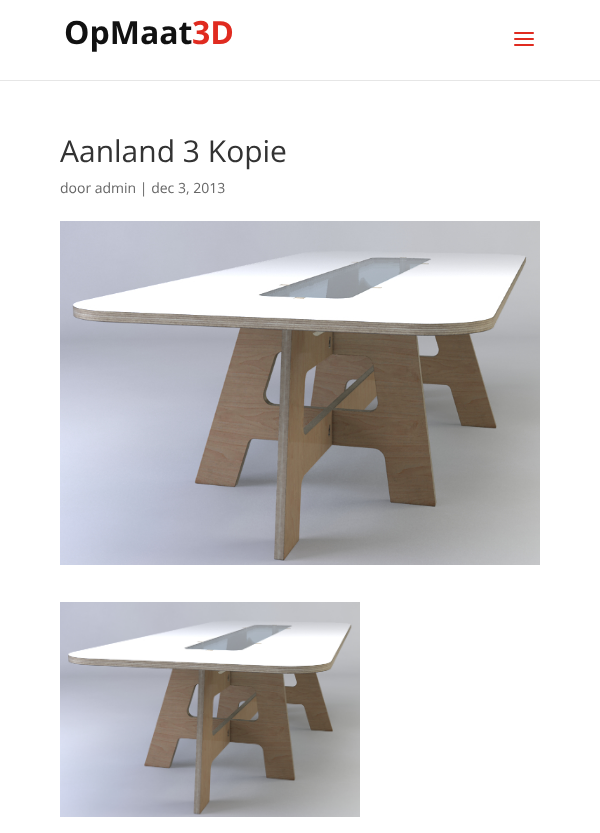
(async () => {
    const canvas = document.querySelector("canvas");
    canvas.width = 600;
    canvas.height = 833;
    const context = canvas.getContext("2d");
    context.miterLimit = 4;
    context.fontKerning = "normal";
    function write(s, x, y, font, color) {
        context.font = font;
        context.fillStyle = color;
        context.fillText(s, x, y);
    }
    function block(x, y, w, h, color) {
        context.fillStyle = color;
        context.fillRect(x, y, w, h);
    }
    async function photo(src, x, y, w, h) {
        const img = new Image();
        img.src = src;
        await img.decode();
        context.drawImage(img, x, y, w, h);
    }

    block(0, 0, 600, 833, "rgb(255, 255, 255)");
    block(0, 80, 600, 1, "rgb(230, 230, 230)");
    write("OpMaat", 64, 44, "bold 32px Open Sans", "rgb(17, 17, 17)");
    write("3D", 192, 44, "bold 32px Open Sans", "rgb(224, 43, 32)");
    await photo("media/1.png", 514, 32, 20, 14);
    write("Aanland 3 Kopie", 60, 162, "30px Open Sans", "rgb(51, 51, 51)");
    write("door admin | dec 3, 2013", 60, 193, "14px Open Sans", "rgb(102, 102, 102)");
    await photo("media/2.png", 60, 221, 480, 344);
    await photo("media/3.png", 60, 602, 300, 215);
})();
